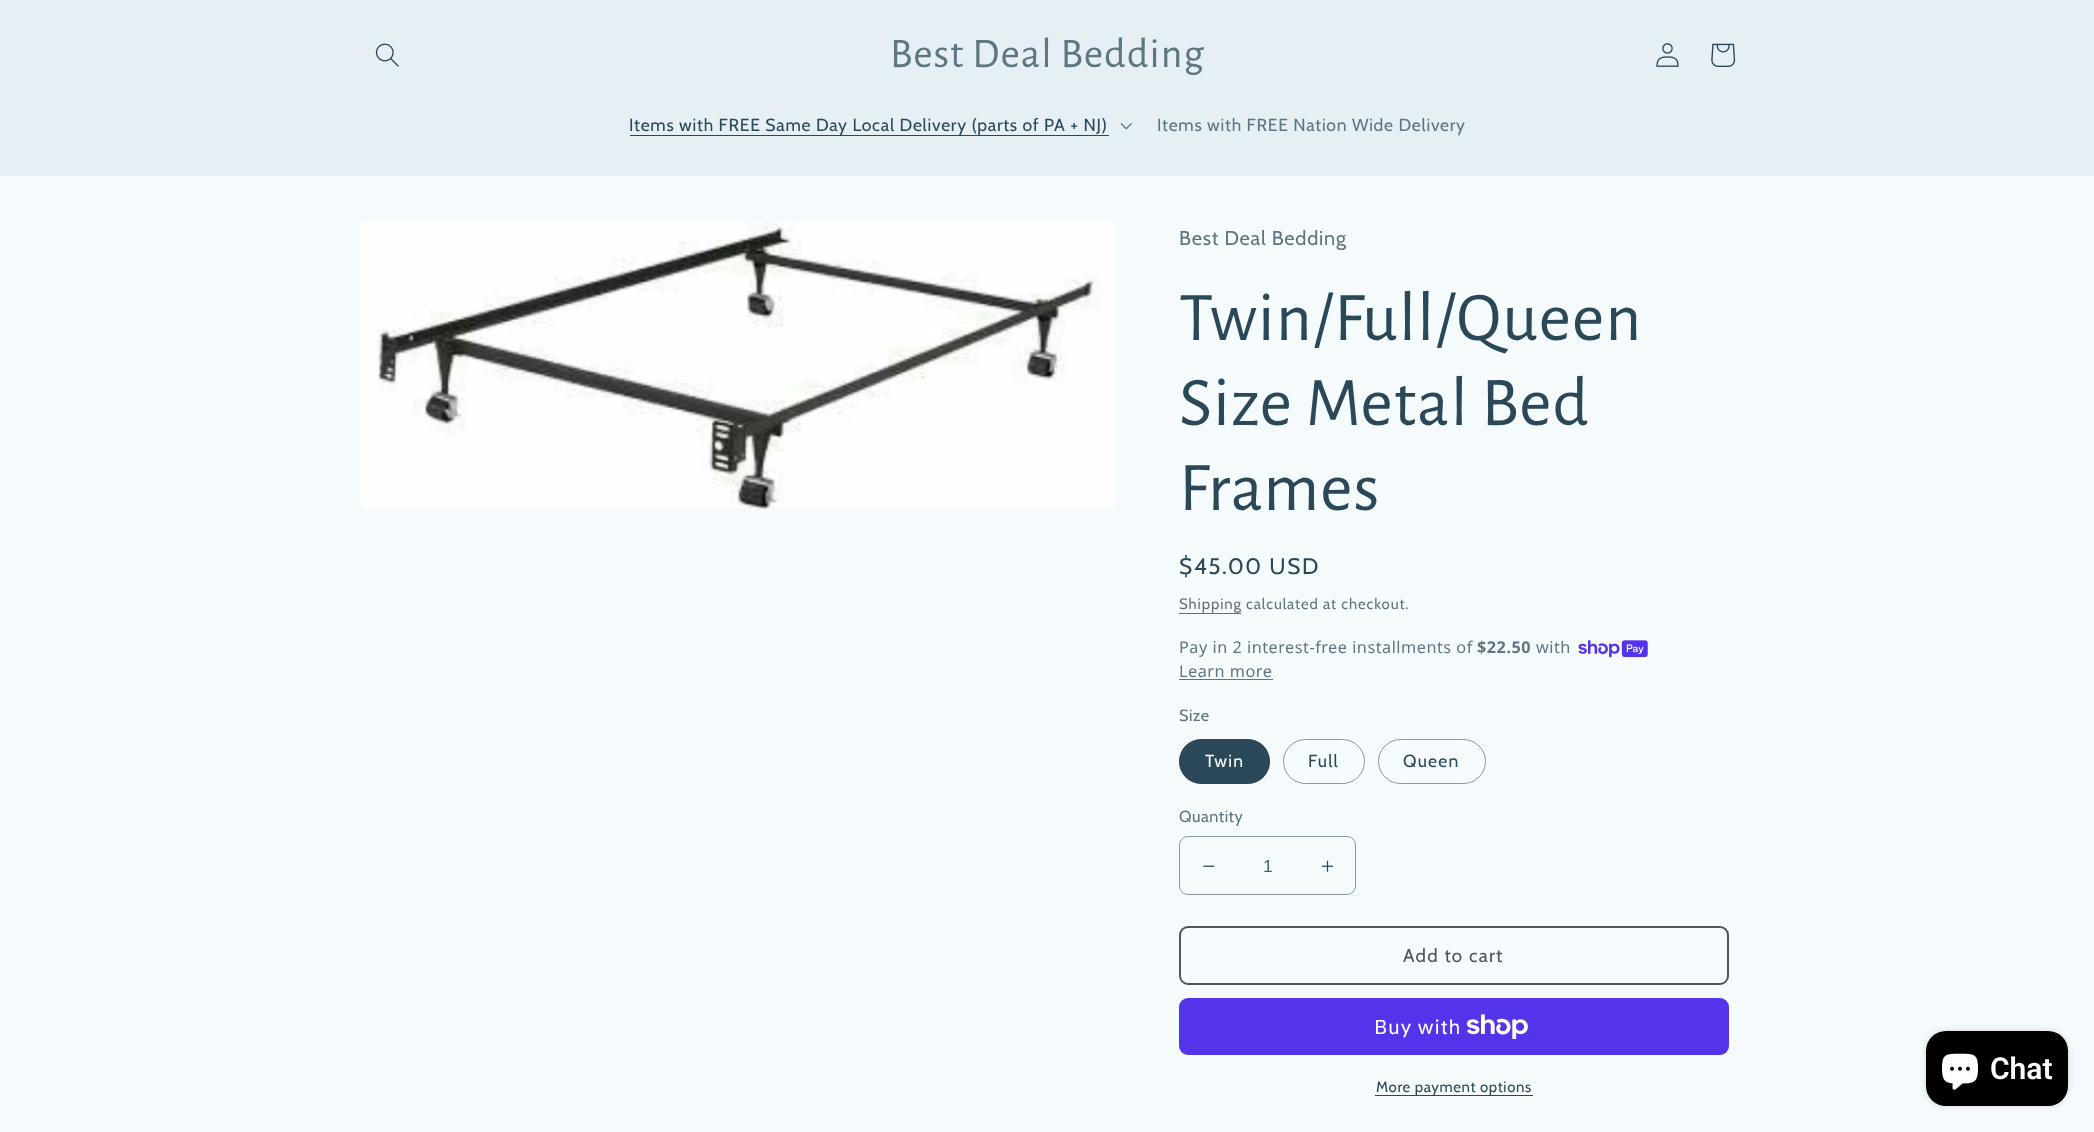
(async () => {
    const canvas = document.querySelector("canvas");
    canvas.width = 2094;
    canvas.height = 1132;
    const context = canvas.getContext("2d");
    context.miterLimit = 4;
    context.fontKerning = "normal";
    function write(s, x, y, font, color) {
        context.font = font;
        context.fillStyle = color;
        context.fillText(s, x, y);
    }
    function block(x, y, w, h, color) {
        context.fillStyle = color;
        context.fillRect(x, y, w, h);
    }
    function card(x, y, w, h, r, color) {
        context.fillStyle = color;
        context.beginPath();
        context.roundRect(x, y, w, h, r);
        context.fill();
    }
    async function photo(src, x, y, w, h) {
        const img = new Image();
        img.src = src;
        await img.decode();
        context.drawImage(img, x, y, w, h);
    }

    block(0, 0, 2094, 1132, "rgb(245, 251, 253)");
    block(0, 0, 2094, 176, "rgb(229, 239, 244)");
    await photo("media/1.png", 375, 43, 24, 24);
    context.letterSpacing = "1px";
    write("Best Deal Bedding", 890, 67, "42px Alegreya Sans", "rgb(94, 117, 130)");
    await photo("media/2.png", 1656, 43, 23, 24);
    await photo("media/3.png", 1711, 43, 25, 24);
    block(630, 135, 479, 1, "rgb(43, 72, 89)");
    context.letterSpacing = "0.75px";
    write("Items with FREE Same Day Local Delivery (parts of PA + NJ)", 629, 131, "17.5px Cabin", "rgb(43, 72, 89)");
    await photo("media/4.png", 1120, 123, 12, 7);
    write("Items with FREE Nation Wide Delivery", 1157, 131, "17.5px Cabin", "rgb(94, 117, 130)");
    await photo("media/5.png", 360, 221, 756, 288);
    write("Best Deal Bedding", 1179, 245, "20px Cabin", "rgb(94, 117, 130)");
    context.letterSpacing = "1px";
    write("Twin/Full/Queen", 1179, 340, "70px Alegreya Sans", "rgb(43, 72, 89)");
    write("Size Metal Bed", 1179, 425, "70px Alegreya Sans", "rgb(43, 72, 89)");
    write("Frames", 1179, 510, "70px Alegreya Sans", "rgb(43, 72, 89)");
    context.letterSpacing = "1.6px";
    write("$45.00 USD", 1179, 574, "22.5px Cabin", "rgb(43, 72, 89)");
    context.letterSpacing = "0.9px";
    write("Shipping", 1179, 609, "15px Cabin", "rgb(105, 111, 110)");
    block(1179, 613, 62, 1, "rgb(105, 111, 110)");
    write("calculated at checkout.", 1246, 609, "15px Cabin", "rgb(94, 117, 130)");
    context.letterSpacing = "0.5px";
    write("Pay in 2 interest-free installments of", 1179, 653, "16.25px Noto Sans", "rgb(94, 117, 130)");
    write("$22.50", 1477, 653, "bold 16.25px Noto Sans", "rgb(94, 117, 130)");
    write("with", 1536, 653, "16.25px Noto Sans", "rgb(94, 117, 130)");
    await photo("media/6.png", 1578, 640, 70, 18);
    write("Learn more", 1179, 677, "16.25px Noto Sans", "rgb(94, 117, 130)");
    block(1179, 679, 94, 1, "rgb(94, 117, 130)");
    write("Size", 1179, 721, "16.25px Cabin", "rgb(94, 117, 130)");
    card(1179, 739, 91, 45, 22.5, "rgb(43, 72, 89)");
    context.beginPath();
    context.roundRect(1179.5, 739.5, 90, 44, 22);
    context.strokeStyle = "rgba(43, 72, 89, 0.55)";
    context.stroke();
    context.letterSpacing = "1.25px";
    write("Twin", 1205, 767, "17.5px Cabin", "rgb(245, 251, 253)");
    context.beginPath();
    context.roundRect(1283.5, 739.5, 81, 44, 22);
    context.strokeStyle = "rgb(134, 153, 163)";
    context.stroke();
    write("Full", 1308, 767, "17.5px Cabin", "rgb(43, 72, 89)");
    context.beginPath();
    context.roundRect(1378.5, 739.5, 107, 44, 22);
    context.stroke();
    write("Queen", 1403, 767, "17.5px Cabin", "rgb(43, 72, 89)");
    context.letterSpacing = "0.5px";
    write("Quantity", 1179, 822, "16.25px Cabin", "rgb(94, 117, 130)");
    await photo("media/7.png", 1203, 865, 12, 2);
    await photo("media/8.png", 1321, 860, 13, 12);
    context.beginPath();
    context.roundRect(1179.5, 836.5, 176, 58, 8.5);
    context.stroke();
    context.letterSpacing = "0px";
    write("1", 1263, 872, "17.5px Liberation Sans", "rgb(73, 99, 114)");
    context.beginPath();
    context.roundRect(1180, 927, 548, 57, 8);
    context.strokeStyle = "rgb(80, 86, 85)";
    context.lineWidth = 2;
    context.stroke();
    context.letterSpacing = "1.25px";
    write("Add to cart", 1403, 962, "18.75px Cabin", "rgb(80, 86, 85)");
    card(1179, 998, 550, 57, 9, "rgb(84, 51, 235)");
    context.letterSpacing = "0.75px";
    write("Buy with", 1374, 1034, "20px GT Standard", "rgb(255, 255, 255)");
    await photo("media/9.png", 1466, 1014, 62, 25);
    block(1375, 1095, 158, 1, "rgb(43, 72, 89)");
    context.letterSpacing = "0.6px";
    write("More payment options", 1376, 1092, "15px Cabin", "rgb(43, 72, 89)");
    context.fillStyle = "rgba(0, 0, 0, 0.15)";
    context.filter = "blur(3px)";
    context.beginPath();
    context.roundRect(1926, 1031, 142, 75, 20);
    context.fill();
    context.filter = "none";
    card(1926, 1031, 142, 75, 20, "rgb(0, 0, 0)");
    await photo("media/10.png", 1942, 1053, 36, 37);
    context.letterSpacing = "0px";
    write("Chat", 1990, 1079, "600 30px Roboto", "rgb(255, 255, 255)");
})();
